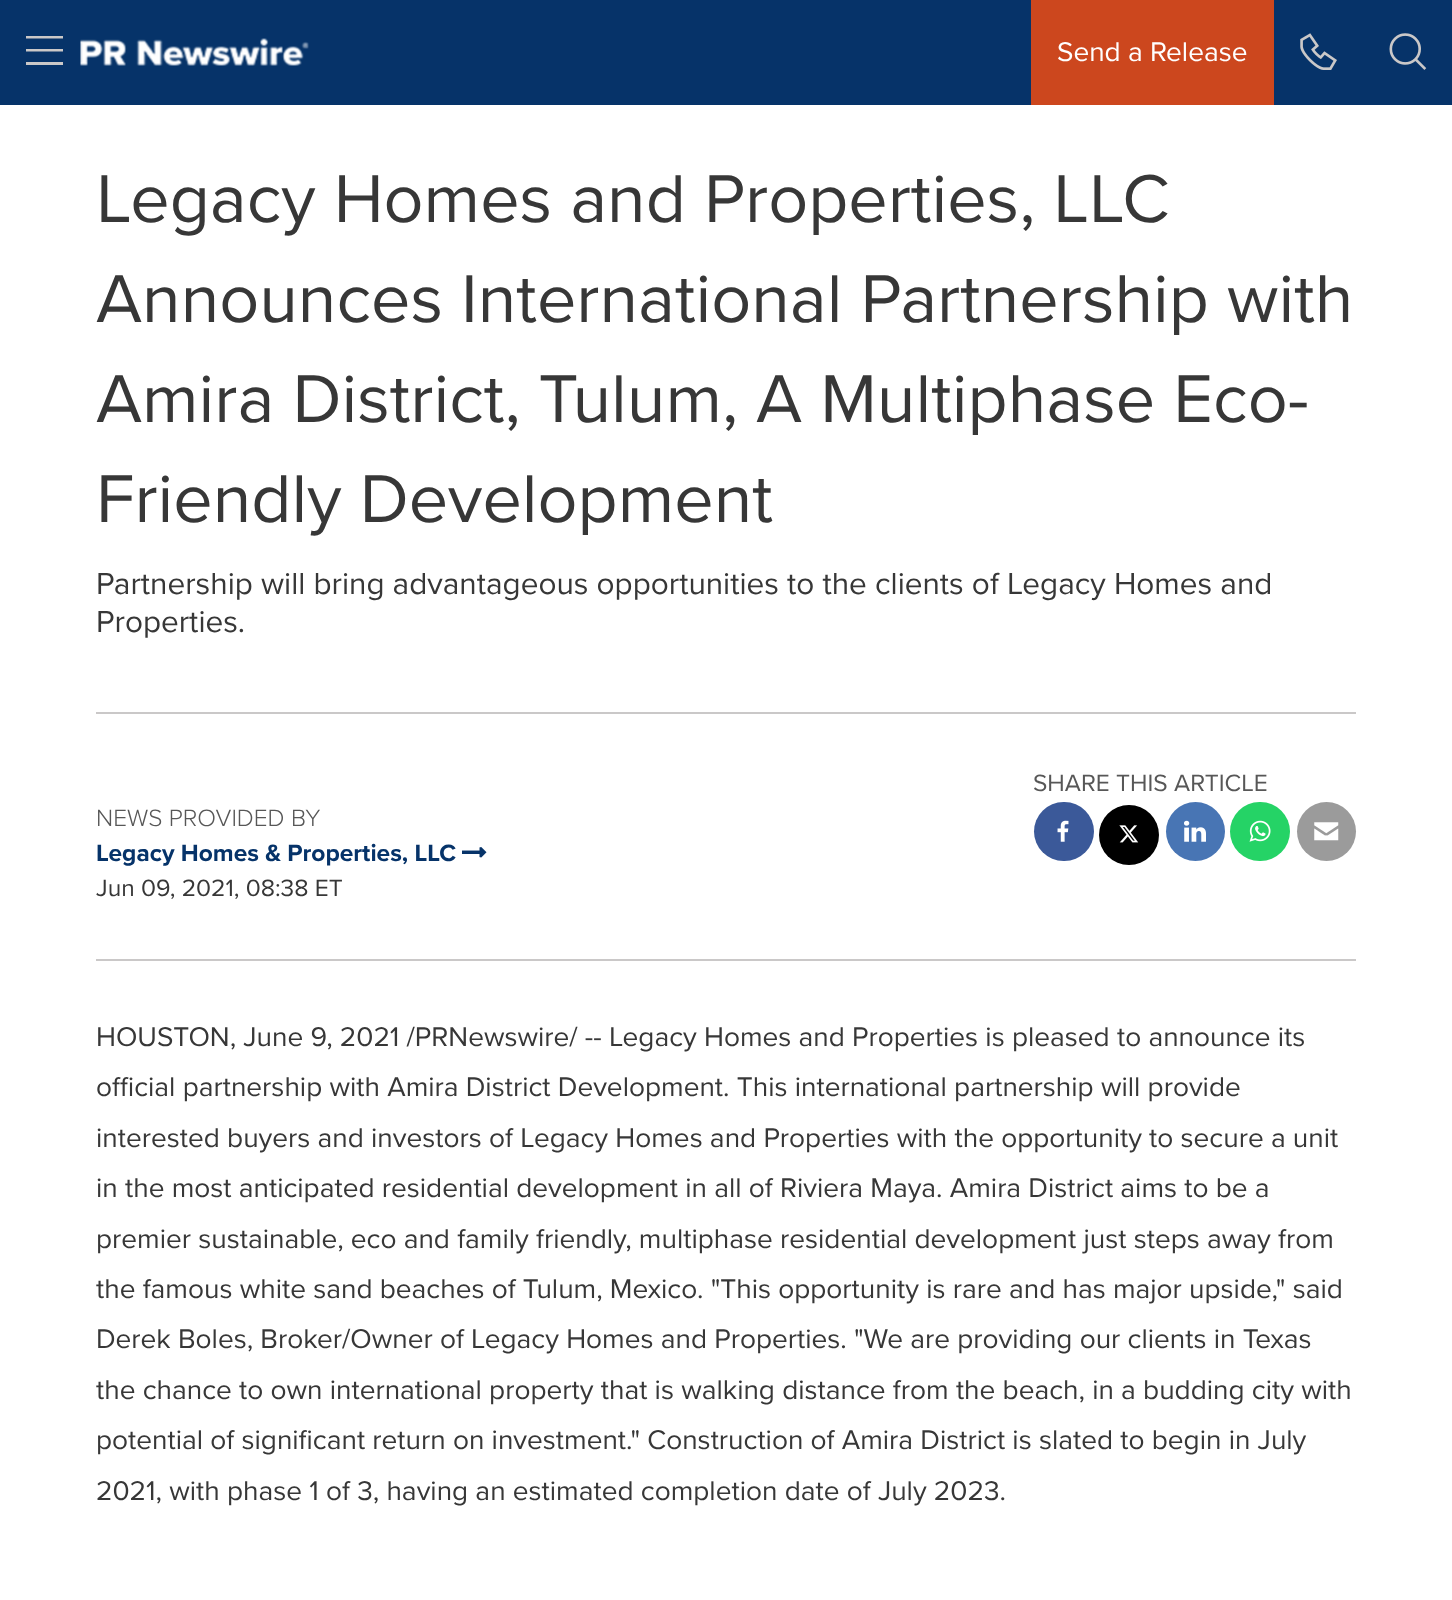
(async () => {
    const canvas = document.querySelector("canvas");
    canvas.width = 1452;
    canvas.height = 1600;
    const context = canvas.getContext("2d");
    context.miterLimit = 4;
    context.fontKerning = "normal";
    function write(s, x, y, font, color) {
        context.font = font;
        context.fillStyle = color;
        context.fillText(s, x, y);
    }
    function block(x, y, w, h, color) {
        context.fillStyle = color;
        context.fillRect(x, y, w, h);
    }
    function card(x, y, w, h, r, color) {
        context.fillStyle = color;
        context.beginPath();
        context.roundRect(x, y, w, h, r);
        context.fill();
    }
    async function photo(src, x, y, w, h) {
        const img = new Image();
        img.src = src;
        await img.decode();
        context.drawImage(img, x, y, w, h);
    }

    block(0, 0, 1452, 1600, "rgb(255, 255, 255)");
    block(0, 0, 1452, 105, "rgb(6, 51, 105)");
    context.fillStyle = "rgb(202, 200, 200)";
    context.beginPath();
    context.moveTo(63, 49);
    context.lineTo(63, 51.5);
    context.lineTo(26, 51.5);
    context.lineTo(26, 49);
    context.closePath();
    context.moveTo(63, 62);
    context.lineTo(63, 65);
    context.lineTo(26, 65);
    context.lineTo(26, 62);
    context.closePath();
    context.moveTo(63, 36);
    context.lineTo(63, 38.5);
    context.lineTo(26, 38.5);
    context.lineTo(26, 36);
    context.closePath();
    context.fill();
    await photo("media/1.png", 80, 38, 229, 28);
    block(1031, 0, 243, 105, "rgb(204, 71, 30)");
    write("Send a Release", 1057, 61, "28px Proxima Nova", "rgb(255, 255, 255)");
    await photo("media/2.png", 1300, 33, 37, 37);
    await photo("media/3.png", 1389, 33, 38, 37);
    write("Legacy Homes and Properties, LLC", 96, 222, "70px Proxima Nova", "rgb(55, 55, 55)");
    write("Announces International Partnership with", 96, 322, "70px Proxima Nova", "rgb(55, 55, 55)");
    write("Amira District, Tulum, A Multiphase Eco-", 96, 422, "70px Proxima Nova", "rgb(55, 55, 55)");
    write("Friendly Development", 96, 522, "70px Proxima Nova", "rgb(55, 55, 55)");
    write("Partnership will bring advantageous opportunities to the clients of Legacy Homes and", 96, 594, "31.5px Proxima Nova", "rgb(55, 55, 55)");
    write("Properties.", 96, 632, "31.5px Proxima Nova", "rgb(55, 55, 55)");
    block(96, 712, 1260, 2, "rgb(202, 200, 200)");
    write("SHARE THIS ARTICLE", 1033, 791, "24.5px Proxima Nova", "rgb(87, 87, 87)");
    card(1034, 802, 60, 59, 29.5, "rgb(59, 89, 153)");
    await photo("media/4.png", 1057, 820, 12, 22);
    context.fillStyle = "rgb(0, 0, 0)";
    context.beginPath();
    context.arc(1129, 835, 30, 0, Math.PI * 2);
    context.fill();
    await photo("media/5.png", 1119, 825, 20, 18);
    context.fillStyle = "rgb(72, 117, 180)";
    context.beginPath();
    context.arc(1195.5, 831.5, 29.5, 0, Math.PI * 2);
    context.fill();
    await photo("media/6.png", 1184, 820, 22, 22);
    card(1230, 802, 60, 59, 29.5, "rgb(37, 211, 102)");
    await photo("media/7.png", 1249, 820, 22, 22);
    context.fillStyle = "rgb(155, 155, 155)";
    context.beginPath();
    context.arc(1326.5, 831.5, 29.5, 0, Math.PI * 2);
    context.fill();
    await photo("media/8.png", 1314, 822, 25, 19);
    write("NEWS PROVIDED BY", 96, 826, "300 24.5px Proxima Nova", "rgb(87, 87, 87)");
    write("Legacy Homes & Properties, LLC", 96, 861, "bold 24.5px Proxima Nova", "rgb(6, 51, 105)");
    await photo("media/9.png", 462, 847, 25, 11);
    write("Jun 09, 2021, 08:38 ET", 96, 896, "24.5px Proxima Nova", "rgb(55, 55, 55)");
    block(96, 959, 1260, 2, "rgb(202, 200, 200)");
    write("HOUSTON, June 9, 2021 /PRNewswire/ -- Legacy Homes and Properties is pleased to announce its", 96, 1046, "28px Proxima Nova", "rgb(55, 55, 55)");
    write("official partnership with Amira District Development. This international partnership will provide", 96, 1096, "28px Proxima Nova", "rgb(55, 55, 55)");
    write("interested buyers and investors of Legacy Homes and Properties with the opportunity to secure a unit", 96, 1147, "28px Proxima Nova", "rgb(55, 55, 55)");
    write("in the most anticipated residential development in all of Riviera Maya. Amira District aims to be a", 96, 1197, "28px Proxima Nova", "rgb(55, 55, 55)");
    write("premier sustainable, eco and family friendly, multiphase residential development just steps away from", 96, 1248, "28px Proxima Nova", "rgb(55, 55, 55)");
    write("the famous white sand beaches of Tulum, Mexico. \"This opportunity is rare and has major upside,\" said", 96, 1298, "28px Proxima Nova", "rgb(55, 55, 55)");
    write("Derek Boles, Broker/Owner of Legacy Homes and Properties. \"We are providing our clients in Texas", 96, 1348, "28px Proxima Nova", "rgb(55, 55, 55)");
    write("the chance to own international property that is walking distance from the beach, in a budding city with", 96, 1399, "28px Proxima Nova", "rgb(55, 55, 55)");
    write("potential of significant return on investment.\" Construction of Amira District is slated to begin in July", 96, 1449, "28px Proxima Nova", "rgb(55, 55, 55)");
    write("2021, with phase 1 of 3, having an estimated completion date of July 2023.", 96, 1500, "28px Proxima Nova", "rgb(55, 55, 55)");
})();
